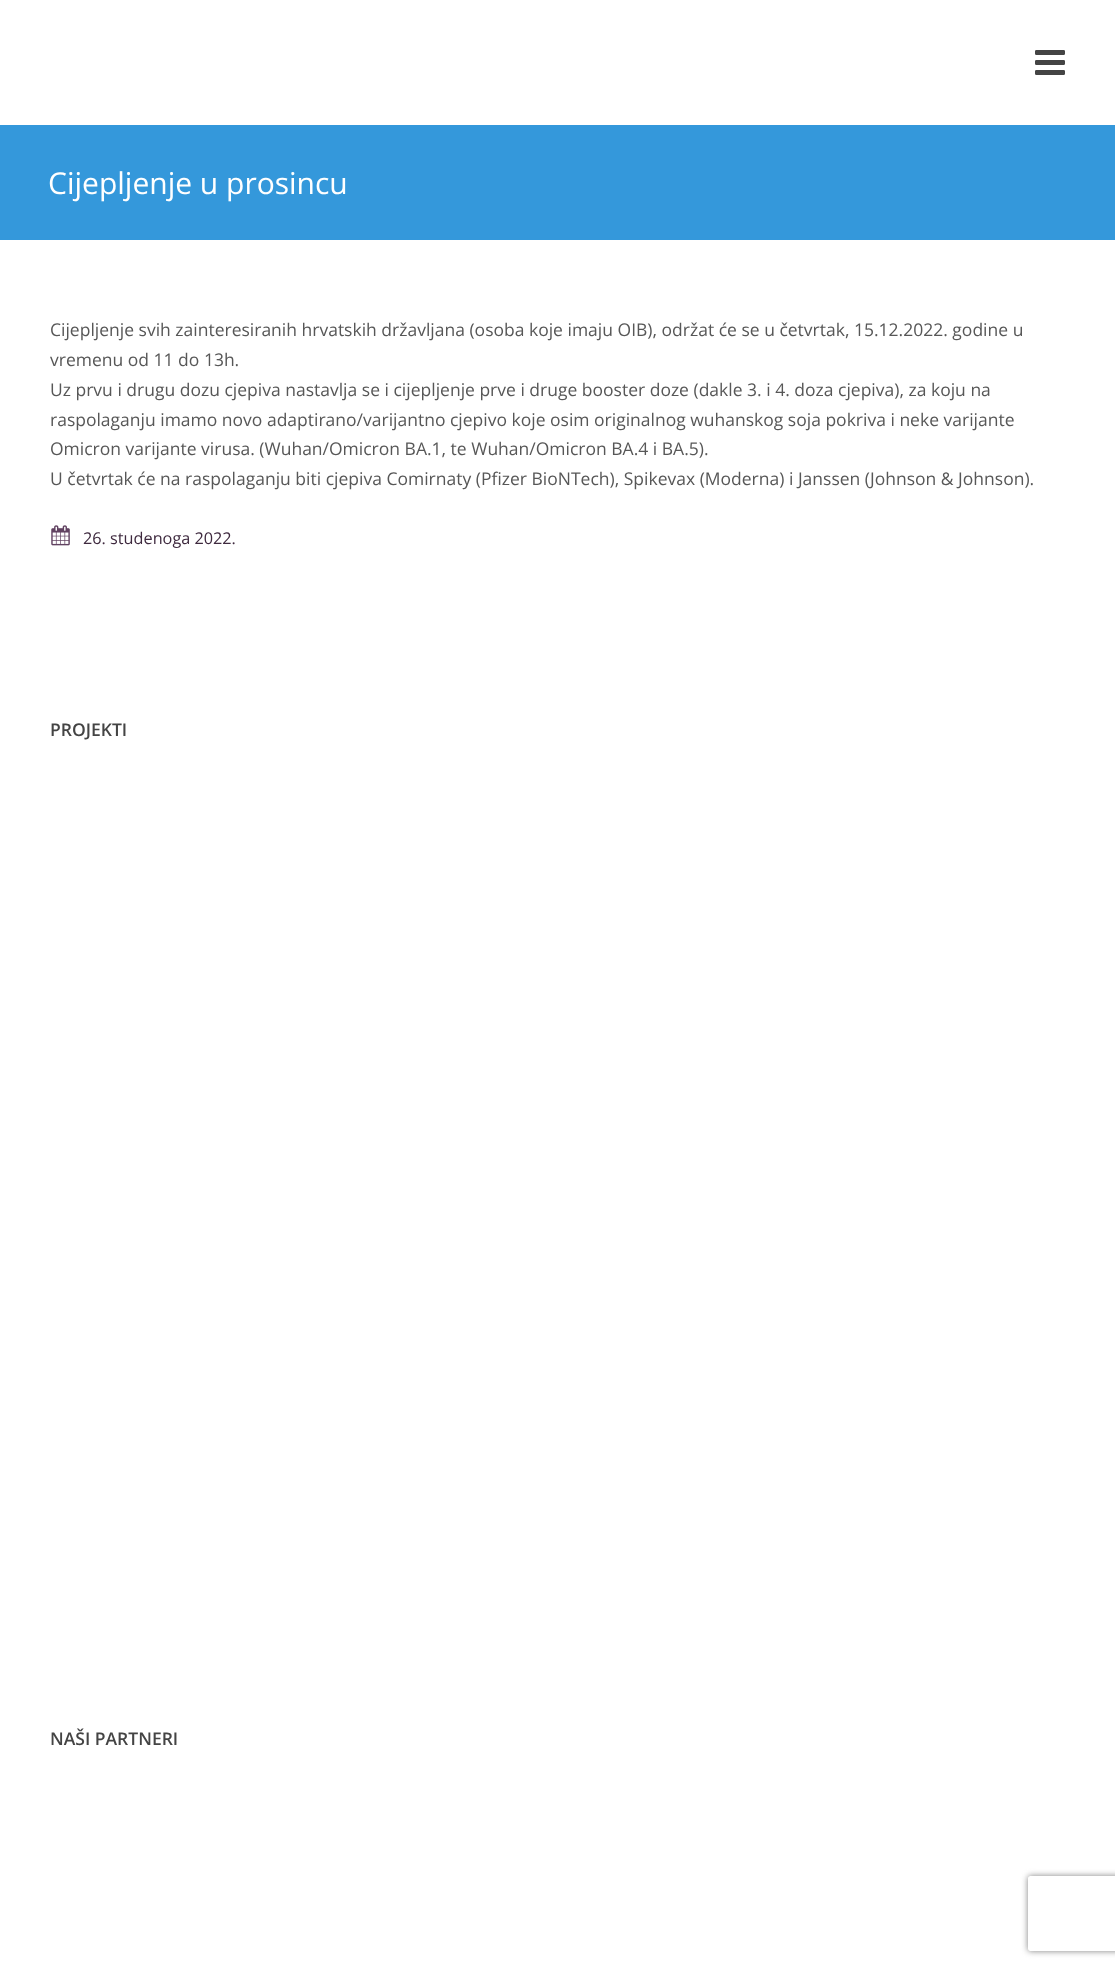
(async () => {
    const canvas = document.querySelector("canvas");
    canvas.width = 1115;
    canvas.height = 1968;
    const context = canvas.getContext("2d");
    context.miterLimit = 4;
    context.fontKerning = "normal";
    function write(s, x, y, font, color) {
        context.font = font;
        context.fillStyle = color;
        context.fillText(s, x, y);
    }
    function block(x, y, w, h, color) {
        context.fillStyle = color;
        context.fillRect(x, y, w, h);
    }
    async function photo(src, x, y, w, h) {
        const img = new Image();
        img.src = src;
        await img.decode();
        context.drawImage(img, x, y, w, h);
    }

    block(0, 0, 1115, 1968, "rgb(255, 255, 255)");
    await photo("media/1.png", 1035, 50, 30, 25);
    block(0, 125, 1115, 115, "rgb(52, 152, 219)");
    write("Cijepljenje u prosincu", 48, 194, "30px Open Sans", "rgb(255, 255, 255)");
    write("Cijepljenje svih zainteresiranih hrvatskih državljana (osoba koje imaju OIB), održat će se u četvrtak, 15.12.2022. godine u", 50, 336, "17.5px Open Sans", "rgb(87, 87, 87)");
    write("vremenu od 11 do 13h.", 50, 366, "17.5px Open Sans", "rgb(87, 87, 87)");
    write("Uz prvu i drugu dozu cjepiva nastavlja se i cijepljenje prve i druge booster doze (dakle 3. i 4. doza cjepiva), za koju na", 50, 396, "17.5px Open Sans", "rgb(87, 87, 87)");
    write("raspolaganju imamo novo adaptirano/varijantno cjepivo koje osim originalnog wuhanskog soja pokriva i neke varijante", 50, 426, "17.5px Open Sans", "rgb(87, 87, 87)");
    write("Omicron varijante virusa. (Wuhan/Omicron BA.1, te Wuhan/Omicron BA.4 i BA.5).", 50, 455, "17.5px Open Sans", "rgb(87, 87, 87)");
    write("U četvrtak će na raspolaganju biti cjepiva Comirnaty (Pfizer BioNTech), Spikevax (Moderna) i Janssen (Johnson & Johnson).", 50, 485, "17.5px Open Sans", "rgb(87, 87, 87)");
    await photo("media/2.png", 51, 525, 19, 21);
    write("26. studenoga 2022.", 83, 544, "16.25px Open Sans", "rgb(62, 41, 62)");
    write("PROJEKTI", 50, 736, "600 17.5px Open Sans", "rgb(68, 68, 68)");
    write("NAŠI PARTNERI", 50, 1745, "600 17.5px Open Sans", "rgb(68, 68, 68)");
    context.save();
    context.beginPath();
    context.moveTo(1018, 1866);
    context.lineTo(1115, 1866);
    context.lineTo(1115, 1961);
    context.lineTo(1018, 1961);
    context.closePath();
    context.moveTo(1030.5, 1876);
    context.lineTo(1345.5, 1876);
    context.bezierCurveTo(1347, 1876, 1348, 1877, 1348, 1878.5);
    context.lineTo(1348, 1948.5);
    context.bezierCurveTo(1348, 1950, 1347, 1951, 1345.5, 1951);
    context.lineTo(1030.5, 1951);
    context.bezierCurveTo(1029, 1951, 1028, 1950, 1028, 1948.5);
    context.lineTo(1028, 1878.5);
    context.bezierCurveTo(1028, 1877, 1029, 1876, 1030.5, 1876);
    context.closePath();
    context.clip("evenodd");
    context.fillStyle = "rgb(128, 128, 128)";
    context.filter = "blur(3px)";
    context.beginPath();
    context.roundRect(1028, 1876, 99, 75, 2.5);
    context.fill();
    context.filter = "none";
    context.restore();
})();
